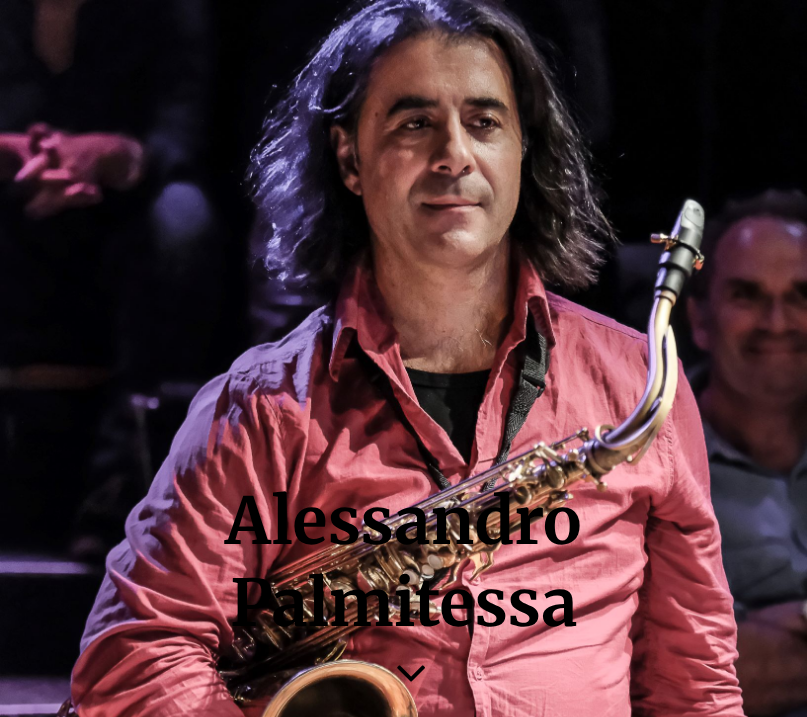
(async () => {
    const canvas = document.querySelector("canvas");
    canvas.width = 807;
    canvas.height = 717;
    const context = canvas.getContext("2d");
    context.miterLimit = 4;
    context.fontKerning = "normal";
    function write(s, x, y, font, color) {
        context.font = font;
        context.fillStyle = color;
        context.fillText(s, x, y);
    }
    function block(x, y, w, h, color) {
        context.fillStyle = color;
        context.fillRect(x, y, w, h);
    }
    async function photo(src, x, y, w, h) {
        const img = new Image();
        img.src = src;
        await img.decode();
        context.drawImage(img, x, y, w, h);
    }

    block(0, 0, 807, 717, "rgb(255, 255, 255)");
    await photo("media/1.png", 0, 0, 807, 717);
    write("Alessandro", 225, 544, "bold 64.5px Merriweather", "rgb(0, 0, 0)");
    write("Palmitessa", 230, 626, "bold 64.5px Merriweather", "rgb(0, 0, 0)");
    await photo("media/2.png", 397, 665, 28, 17);
})();
